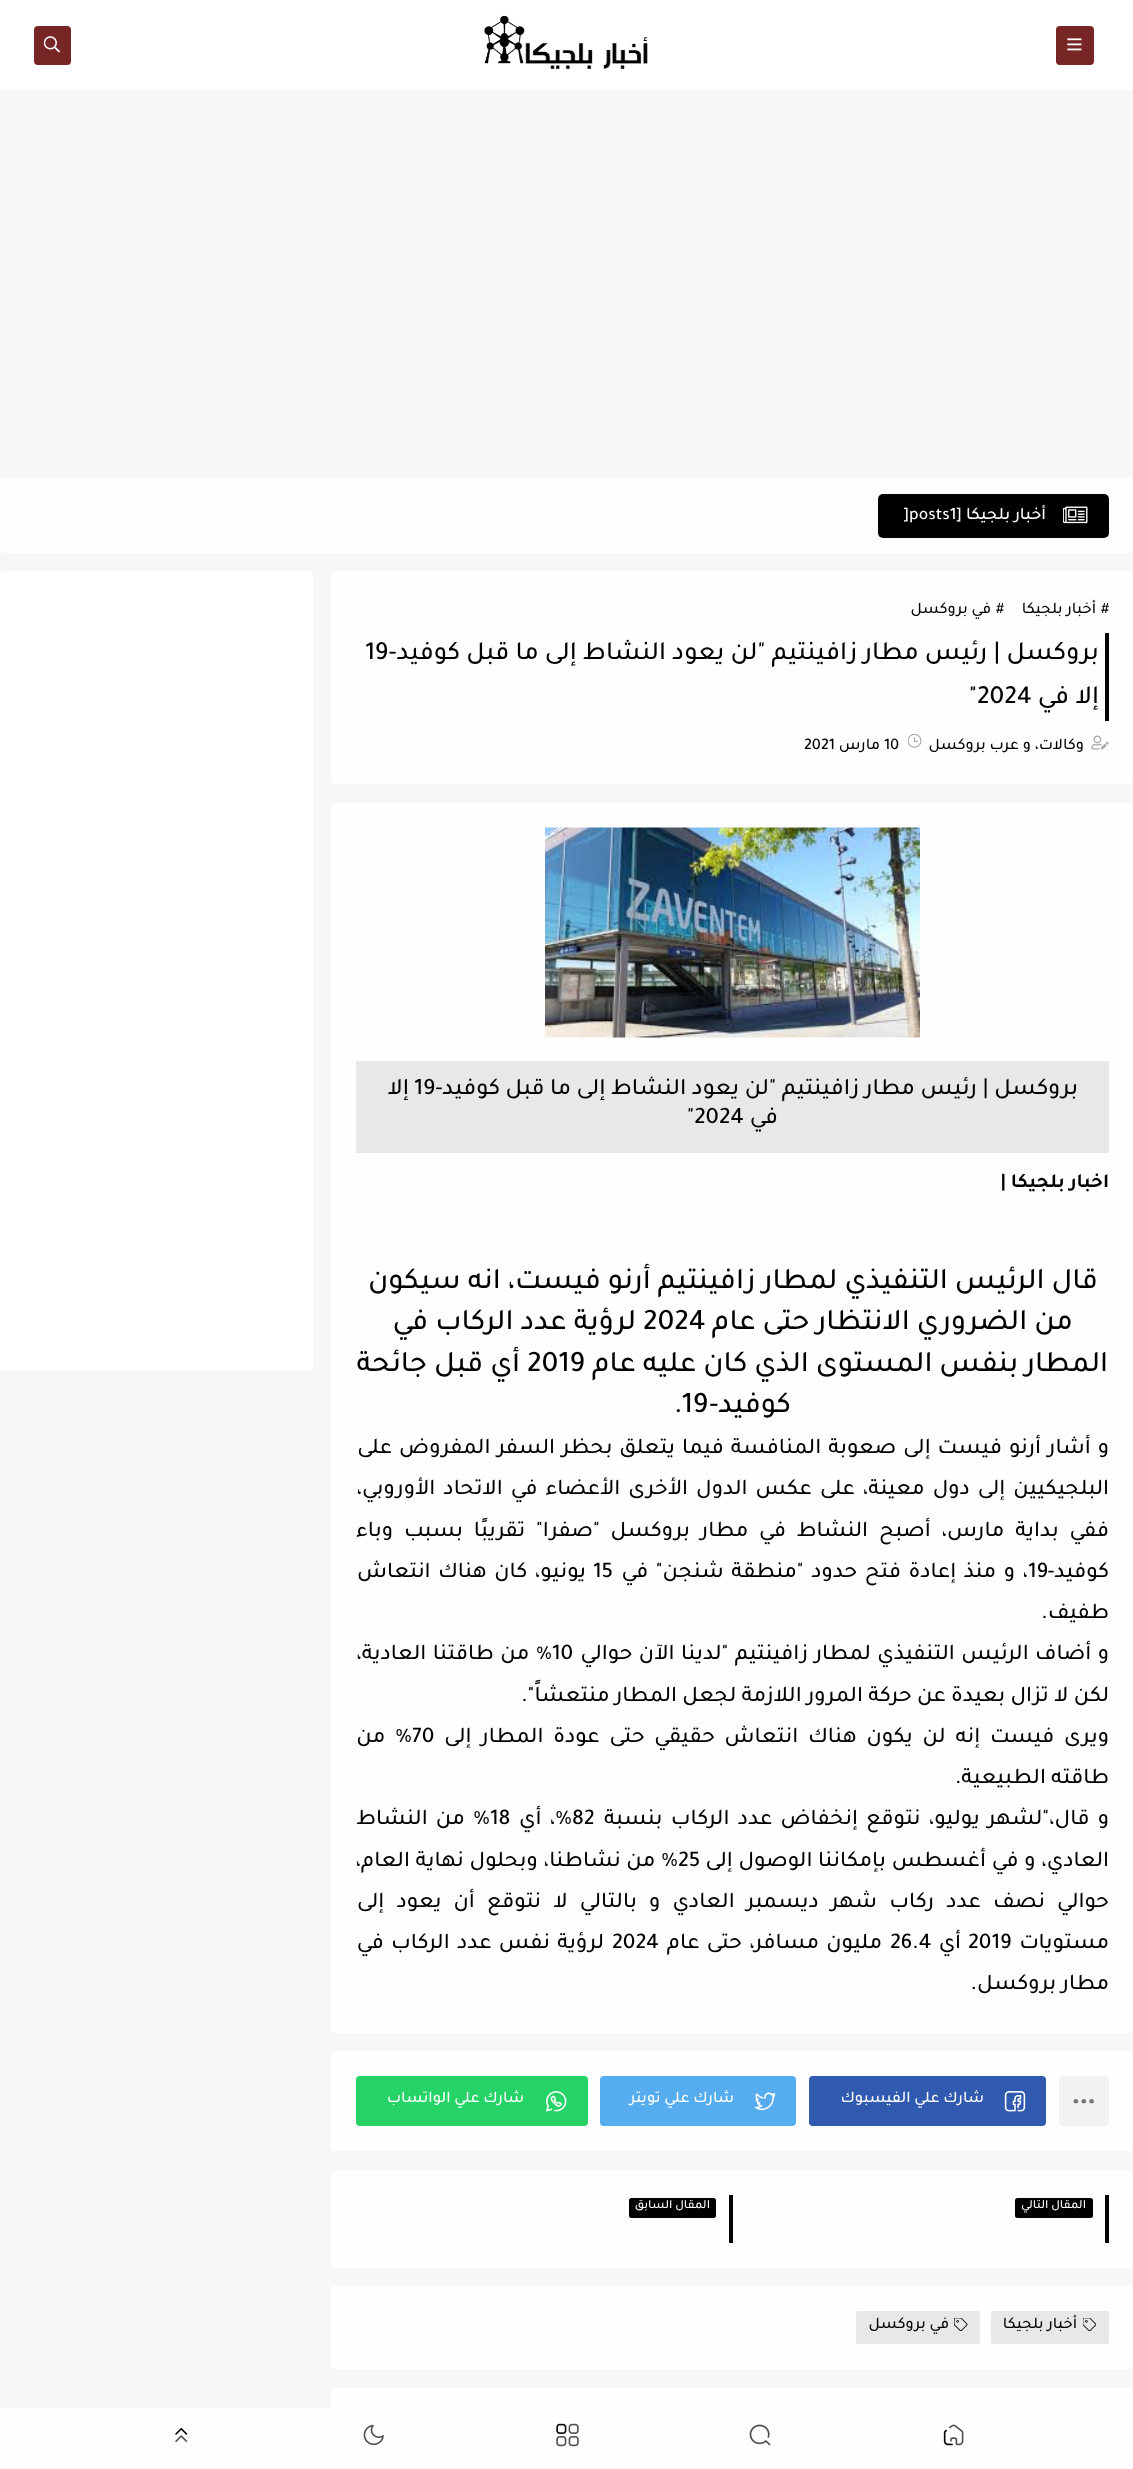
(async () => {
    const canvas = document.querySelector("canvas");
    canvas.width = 1133;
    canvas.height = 2469;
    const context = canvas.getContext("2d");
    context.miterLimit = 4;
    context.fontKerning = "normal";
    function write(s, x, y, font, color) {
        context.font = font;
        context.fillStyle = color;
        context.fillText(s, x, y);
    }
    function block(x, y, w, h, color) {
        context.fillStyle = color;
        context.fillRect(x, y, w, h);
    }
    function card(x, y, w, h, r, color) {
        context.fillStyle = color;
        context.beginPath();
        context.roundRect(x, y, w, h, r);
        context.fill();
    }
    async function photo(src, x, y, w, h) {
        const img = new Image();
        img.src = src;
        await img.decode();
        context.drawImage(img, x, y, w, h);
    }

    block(0, 0, 1133, 2469, "rgb(247, 247, 247)");
    block(0, 0, 1133, 90, "rgb(255, 255, 255)");
    card(1056, 26, 38, 39, 4, "rgb(120, 37, 37)");
    await photo("media/1.png", 1067, 38, 15, 13);
    await photo("media/2.png", 484, 15, 164, 54);
    card(34, 26, 37, 39, 4, "rgb(120, 37, 37)");
    await photo("media/3.png", 44, 36, 16, 17);
    card(0, 478, 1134, 75, 4, "rgb(254, 254, 254)");
    card(878, 494, 231, 44, 5, "rgb(0, 0, 0)");
    await photo("media/4.png", 1063, 506, 25, 18);
    context.direction = "rtl";
    write("أخبار بلجيكا [", 1046, 519, "500 17.5px Tajawal", "rgb(255, 255, 255)");
    context.direction = "ltr";
    write("]posts1", 903, 519, "500 17.5px Tajawal", "rgb(255, 255, 255)");
    card(331, 571, 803, 213, 4, "rgb(254, 254, 254)");
    write("#", 1101, 613, "500 16.25px Tajawal", "rgb(0, 0, 0)");
    context.direction = "rtl";
    write("أخبار بلجيكا", 1096, 613, "500 16.25px Tajawal", "rgb(0, 0, 0)");
    context.direction = "ltr";
    write("#", 996, 613, "500 16.25px Tajawal", "rgb(0, 0, 0)");
    context.direction = "rtl";
    write("في بروكسل", 991, 613, "500 16.25px Tajawal", "rgb(0, 0, 0)");
    block(1105, 633, 4, 88, "rgb(0, 0, 0)");
    write("بروكسل | رئيس مطار زافينتيم \"لن يعود النشاط إلى ما قبل كوفيد-", 1099, 659, "500 26.25px Tajawal", "rgb(0, 0, 0)");
    context.direction = "ltr";
    write("19", 365, 659, "500 26.25px Tajawal", "rgb(0, 0, 0)");
    context.direction = "rtl";
    write("إلا في", 1099, 703, "500 26.25px Tajawal", "rgb(0, 0, 0)");
    context.direction = "ltr";
    write("\"2024", 969, 703, "500 26.25px Tajawal", "rgb(0, 0, 0)");
    await photo("media/5.png", 1091, 735, 18, 15);
    context.direction = "rtl";
    write("وكالات، و عرب بروكسل", 1084, 749, "500 16.25px Tajawal", "rgb(0, 0, 0)");
    await photo("media/6.png", 908, 734, 14, 14);
    context.direction = "ltr";
    write("10", 884, 749, "500 16.25px Tajawal", "rgb(0, 0, 0)");
    context.direction = "rtl";
    write("مارس", 880, 749, "500 16.25px Tajawal", "rgb(0, 0, 0)");
    context.direction = "ltr";
    write("2021", 804, 749, "500 16.25px Tajawal", "rgb(0, 0, 0)");
    card(331, 803, 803, 1230, 4, "rgb(254, 254, 254)");
    await photo("media/7.png", 545, 827, 375, 211);
    block(356, 1061, 753, 92, "rgb(232, 232, 232)");
    context.direction = "rtl";
    write("بروكسل | رئيس مطار زافينتيم \"لن يعود النشاط إلى ما قبل كوفيد-", 1078, 1094, "500 23.75px Tajawal", "rgb(0, 0, 0)");
    context.direction = "ltr";
    write("19", 414, 1094, "500 23.75px Tajawal", "rgb(0, 0, 0)");
    context.direction = "rtl";
    write("إلا", 409, 1094, "500 23.75px Tajawal", "rgb(0, 0, 0)");
    write("في", 778, 1123, "500 23.75px Tajawal", "rgb(0, 0, 0)");
    context.direction = "ltr";
    write("\"2024", 687, 1123, "500 23.75px Tajawal", "rgb(0, 0, 0)");
    context.direction = "rtl";
    write("اخبار بلجيكا |", 1109, 1187, "bold 20px Tajawal", "rgb(0, 0, 0)");
    write("قال الرئيس التنفيذي لمطار زافينتيم أرنو فيست، انه سيكون", 1098, 1288, "500 30px Tajawal", "rgb(0, 0, 0)");
    write("من الضروري الانتظار حتى عام", 1073, 1329, "500 30px Tajawal", "rgb(0, 0, 0)");
    context.direction = "ltr";
    write("2024", 643, 1329, "500 30px Tajawal", "rgb(0, 0, 0)");
    context.direction = "rtl";
    write("لرؤية عدد الركاب في", 636, 1329, "500 30px Tajawal", "rgb(0, 0, 0)");
    write("المطار بنفس المستوى الذي كان عليه عام", 1108, 1371, "500 30px Tajawal", "rgb(0, 0, 0)");
    context.direction = "ltr";
    write("2019", 527, 1371, "500 30px Tajawal", "rgb(0, 0, 0)");
    context.direction = "rtl";
    write("أي قبل جائحة", 520, 1371, "500 30px Tajawal", "rgb(0, 0, 0)");
    write("كوفيد-", 791, 1412, "500 30px Tajawal", "rgb(0, 0, 0)");
    context.direction = "ltr";
    write(".19", 674, 1412, "500 30px Tajawal", "rgb(0, 0, 0)");
    context.wordSpacing = "1.75px";
    context.direction = "rtl";
    write("و أشار أرنو فيست إلى صعوبة المنافسة فيما يتعلق بحظر السفر المفروض على", 1109, 1453, "500 22.5px Tajawal", "rgb(0, 0, 0)");
    context.wordSpacing = "2.75px";
    write("البلجيكيين إلى دول معينة، على عكس الدول الأخرى الأعضاء في الاتحاد الأوروبي،", 1109, 1494, "500 22.5px Tajawal", "rgb(0, 0, 0)");
    context.wordSpacing = "5.6px";
    write("ففي بداية مارس، أصبح النشاط في مطار بروكسل \"صفرا\" تقريبًا بسبب وباء", 1109, 1536, "500 22.5px Tajawal", "rgb(0, 0, 0)");
    context.wordSpacing = "0px";
    write("كوفيد-", 1109, 1577, "500 22.5px Tajawal", "rgb(0, 0, 0)");
    context.direction = "ltr";
    write("19", 1028, 1577, "500 22.5px Tajawal", "rgb(0, 0, 0)");
    context.wordSpacing = "2.25px";
    context.direction = "rtl";
    write("، و منذ إعادة فتح حدود \"منطقة شنجن\" في", 1028, 1577, "500 22.5px Tajawal", "rgb(0, 0, 0)");
    context.wordSpacing = "0px";
    context.direction = "ltr";
    write("15", 593, 1577, "500 22.5px Tajawal", "rgb(0, 0, 0)");
    context.wordSpacing = "2.25px";
    context.direction = "rtl";
    write("يونيو، كان هناك انتعاش", 586, 1577, "500 22.5px Tajawal", "rgb(0, 0, 0)");
    context.wordSpacing = "0px";
    write("طفيف.", 1109, 1618, "500 22.5px Tajawal", "rgb(0, 0, 0)");
    context.wordSpacing = "1.25px";
    write("و أضاف الرئيس التنفيذي لمطار زافينتيم \"لدينا الآن حوالي", 1109, 1659, "500 22.5px Tajawal", "rgb(0, 0, 0)");
    context.wordSpacing = "0px";
    context.direction = "ltr";
    write("10", 552, 1659, "500 22.5px Tajawal", "rgb(0, 0, 0)");
    context.wordSpacing = "1.25px";
    context.direction = "rtl";
    write("٪ من طاقتنا العادية،", 552, 1659, "500 22.5px Tajawal", "rgb(0, 0, 0)");
    context.wordSpacing = "0px";
    write("لكن لا تزال بعيدة عن حركة المرور اللازمة لجعل المطار منتعشاً\".", 1109, 1701, "500 22.5px Tajawal", "rgb(0, 0, 0)");
    context.wordSpacing = "4.5px";
    write("ويرى فيست إنه لن يكون هناك انتعاش حقيقي حتى عودة المطار إلى", 1109, 1742, "500 22.5px Tajawal", "rgb(0, 0, 0)");
    context.wordSpacing = "0px";
    context.direction = "ltr";
    write("70", 412, 1742, "500 22.5px Tajawal", "rgb(0, 0, 0)");
    context.wordSpacing = "4.5px";
    context.direction = "rtl";
    write("% من", 412, 1742, "500 22.5px Tajawal", "rgb(0, 0, 0)");
    context.wordSpacing = "0px";
    write("طاقته الطبيعية.", 1109, 1783, "500 22.5px Tajawal", "rgb(0, 0, 0)");
    context.wordSpacing = "3px";
    write("و قال،\"لشهر يوليو، نتوقع إنخفاض عدد الركاب بنسبة", 1109, 1824, "500 22.5px Tajawal", "rgb(0, 0, 0)");
    context.wordSpacing = "0px";
    context.direction = "ltr";
    write("82", 572, 1824, "500 22.5px Tajawal", "rgb(0, 0, 0)");
    context.wordSpacing = "3px";
    context.direction = "rtl";
    write("%، أي", 572, 1824, "500 22.5px Tajawal", "rgb(0, 0, 0)");
    context.wordSpacing = "0px";
    context.direction = "ltr";
    write("18", 490, 1824, "500 22.5px Tajawal", "rgb(0, 0, 0)");
    context.wordSpacing = "3px";
    context.direction = "rtl";
    write("% من النشاط", 490, 1824, "500 22.5px Tajawal", "rgb(0, 0, 0)");
    context.wordSpacing = "0.5px";
    write("العادي، و في أغسطس بإمكاننا الوصول إلى", 1109, 1866, "500 22.5px Tajawal", "rgb(0, 0, 0)");
    context.wordSpacing = "0px";
    context.direction = "ltr";
    write("25", 678, 1866, "500 22.5px Tajawal", "rgb(0, 0, 0)");
    context.wordSpacing = "0.5px";
    context.direction = "rtl";
    write("% من نشاطنا، وبحلول نهاية العام،", 678, 1866, "500 22.5px Tajawal", "rgb(0, 0, 0)");
    context.wordSpacing = "6.9px";
    write("حوالي نصف عدد ركاب شهر ديسمبر العادي و بالتالي لا نتوقع أن يعود إلى", 1109, 1907, "500 22.5px Tajawal", "rgb(0, 0, 0)");
    context.wordSpacing = "0px";
    write("مستويات", 1109, 1948, "500 22.5px Tajawal", "rgb(0, 0, 0)");
    context.direction = "ltr";
    write("2019", 968, 1948, "500 22.5px Tajawal", "rgb(0, 0, 0)");
    context.direction = "rtl";
    write("أي", 961, 1948, "500 22.5px Tajawal", "rgb(0, 0, 0)");
    context.direction = "ltr";
    write("26.4", 890, 1948, "500 22.5px Tajawal", "rgb(0, 0, 0)");
    context.wordSpacing = "2px";
    context.direction = "rtl";
    write("مليون مسافر، حتى عام", 882, 1948, "500 22.5px Tajawal", "rgb(0, 0, 0)");
    context.wordSpacing = "0px";
    context.direction = "ltr";
    write("2024", 612, 1948, "500 22.5px Tajawal", "rgb(0, 0, 0)");
    context.wordSpacing = "2px";
    context.direction = "rtl";
    write("لرؤية نفس عدد الركاب في", 604, 1948, "500 22.5px Tajawal", "rgb(0, 0, 0)");
    context.wordSpacing = "0px";
    write("مطار بروكسل.", 1109, 1989, "500 22.5px Tajawal", "rgb(0, 0, 0)");
    card(331, 2051, 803, 100, 4, "rgb(254, 254, 254)");
    card(1059, 2076, 50, 50, 4, "rgb(242, 242, 242)");
    context.fillStyle = "rgb(118, 118, 118)";
    context.beginPath();
    context.arc(1083.8, 2101.2, 2.3, 0, Math.PI * 2);
    context.fill();
    context.beginPath();
    context.arc(1091.6, 2101.2, 2.3, 0, Math.PI * 2);
    context.fill();
    context.beginPath();
    context.arc(1075.9, 2101.2, 2.3, 0, Math.PI * 2);
    context.fill();
    card(809, 2076, 237, 50, 4, "rgb(48, 89, 176)");
    await photo("media/8.png", 1004, 2091, 22, 21);
    write("شارك علي الفيسبوك", 984, 2102, "500 16.25px Tajawal", "rgb(255, 255, 255)");
    card(600, 2076, 196, 50, 4, "rgb(85, 172, 239)");
    await photo("media/9.png", 754, 2092, 22, 19);
    write("شارك علي تويتر", 734, 2102, "500 16.25px Tajawal", "rgb(255, 255, 255)");
    card(356, 2076, 232, 50, 4, "rgb(37, 211, 102)");
    await photo("media/10.png", 546, 2091, 21, 21);
    write("شارك علي الواتساب", 524, 2102, "500 16.25px Tajawal", "rgb(255, 255, 255)");
    card(331, 2170, 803, 98, 4, "rgb(254, 254, 254)");
    block(1105, 2195, 4, 48, "rgb(0, 0, 0)");
    card(1015, 2198, 78, 20, 2.5, "rgb(0, 0, 0)");
    write("المقال التالي", 1086, 2208, "500 12.5px Tajawal", "rgb(255, 255, 255)");
    block(729, 2195, 4, 48, "rgb(0, 0, 0)");
    card(629, 2198, 87, 20, 2.5, "rgb(0, 0, 0)");
    write("المقال السابق", 710, 2208, "500 12.5px Tajawal", "rgb(255, 255, 255)");
    card(331, 2286, 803, 83, 4, "rgb(254, 254, 254)");
    card(991, 2311, 118, 33, 2.5, "rgb(232, 232, 232)");
    await photo("media/11.png", 1083, 2318, 13, 13);
    write("أخبار بلجيكا", 1077, 2328, "500 16.25px Tajawal", "rgb(0, 0, 0)");
    card(856, 2311, 124, 33, 2.5, "rgb(232, 232, 232)");
    await photo("media/12.png", 954, 2318, 14, 13);
    write("في بروكسل", 949, 2328, "500 16.25px Tajawal", "rgb(0, 0, 0)");
    card(331, 2388, 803, 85, 4, "rgb(254, 254, 254)");
    card(0, 571, 313, 800, 4, "rgb(255, 255, 255)");
    block(0, 2408, 331, 61, "rgb(254, 254, 254)");
    await photo("media/13.png", 943, 2424, 21, 22);
    await photo("media/14.png", 749, 2424, 22, 22);
    await photo("media/15.png", 556, 2423, 23, 24);
    await photo("media/16.png", 363, 2424, 21, 22);
    await photo("media/17.png", 175, 2428, 13, 14);
})();
